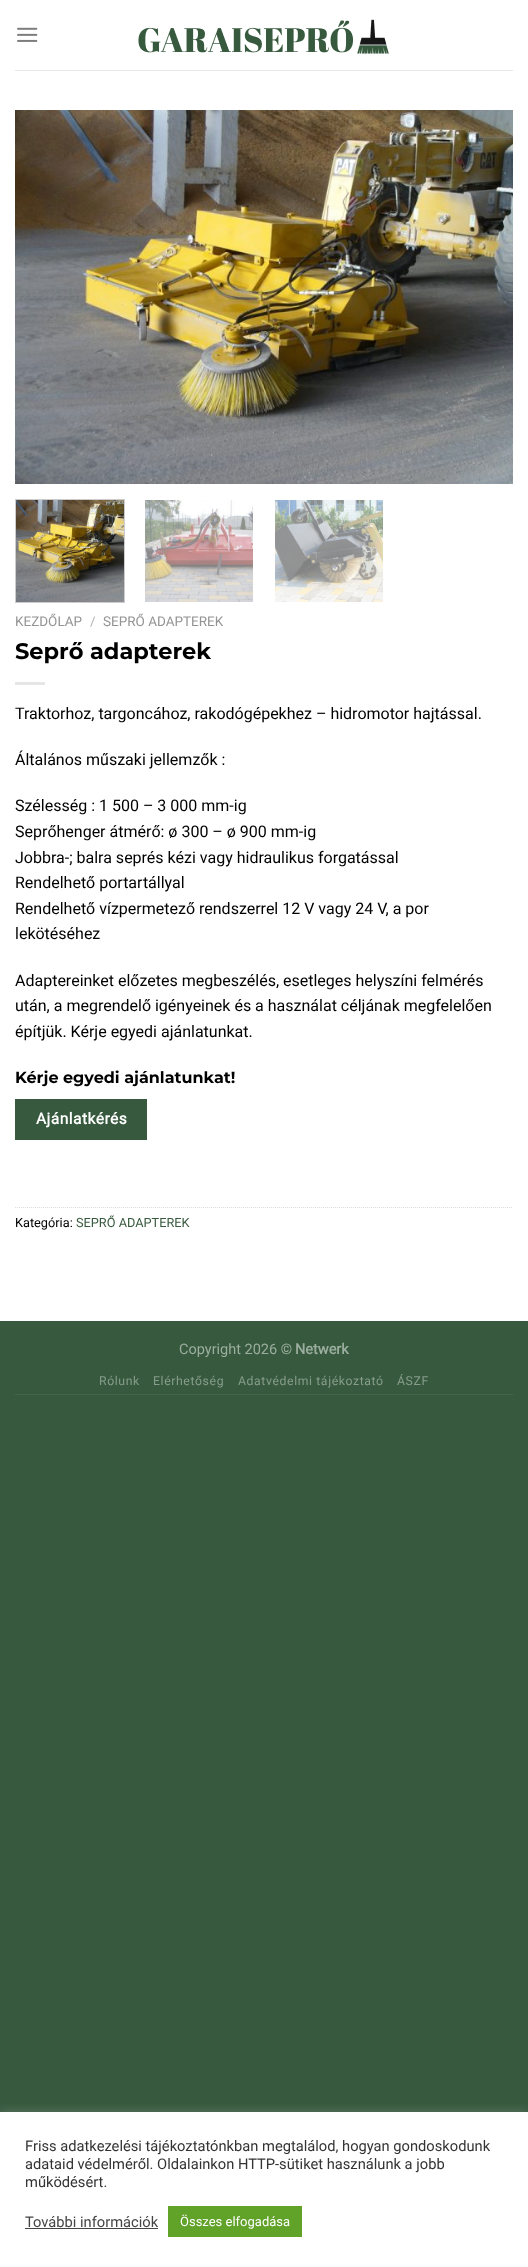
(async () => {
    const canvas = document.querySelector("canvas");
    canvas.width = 528;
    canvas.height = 2267;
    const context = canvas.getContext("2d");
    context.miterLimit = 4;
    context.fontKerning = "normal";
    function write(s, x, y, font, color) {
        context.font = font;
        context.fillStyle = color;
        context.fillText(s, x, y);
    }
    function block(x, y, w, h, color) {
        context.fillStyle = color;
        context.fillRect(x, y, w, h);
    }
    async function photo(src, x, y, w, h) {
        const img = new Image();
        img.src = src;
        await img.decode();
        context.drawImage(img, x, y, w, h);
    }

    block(0, 0, 528, 2267, "rgb(55, 90, 62)");
    block(0, 0, 528, 1321, "rgb(255, 255, 255)");
    await photo("media/1.png", 17, 27, 21, 15);
    await photo("media/2.png", 138, 19, 251, 35);
    block(15, 70, 498, 1, "rgb(230, 230, 230)");
    await photo("media/3.png", 15, 110, 498, 374);
    context.strokeStyle = "rgb(204, 204, 204)";
    context.strokeRect(15.5, 499.5, 109, 103);
    await photo("media/4.png", 16, 500, 108, 102);
    await photo("media/5.png", 145, 500, 108, 102);
    await photo("media/6.png", 275, 500, 108, 102);
    write("KEZDŐLAP", 15, 626, "13.5px Roboto", "rgb(148, 148, 148)");
    write("/", 90, 626, "13.5px Roboto", "rgb(178, 178, 178)");
    write("SEPRŐ ADAPTEREK", 103, 626, "13.5px Roboto", "rgb(148, 148, 148)");
    write("Seprő adapterek", 15, 659, "bold 22.5px Montserrat", "rgb(0, 0, 0)");
    block(15, 682, 30, 3, "rgb(230, 230, 230)");
    write("Traktorhoz, targoncához, rakodógépekhez – hidromotor hajtással.", 15, 719, "16px Roboto", "rgb(0, 0, 0)");
    write("Általános műszaki jellemzők :", 15, 765, "16px Roboto", "rgb(0, 0, 0)");
    write("Szélesség : 1 500 – 3 000 mm-ig", 15, 811, "16px Roboto", "rgb(0, 0, 0)");
    write("Seprőhenger átmérő: ø 300 – ø 900 mm-ig", 15, 837, "16px Roboto", "rgb(0, 0, 0)");
    write("Jobbra-; balra seprés kézi vagy hidraulikus forgatással", 15, 863, "16px Roboto", "rgb(0, 0, 0)");
    write("Rendelhető portartállyal", 15, 888, "16px Roboto", "rgb(0, 0, 0)");
    write("Rendelhető vízpermetező rendszerrel 12 V vagy 24 V, a por", 15, 914, "16px Roboto", "rgb(0, 0, 0)");
    write("lekötéséhez", 15, 939, "16px Roboto", "rgb(0, 0, 0)");
    write("Adaptereinket előzetes megbeszélés, esetleges helyszíni felmérés", 15, 986, "16px Roboto", "rgb(0, 0, 0)");
    write("után, a megrendelő igényeinek és a használat céljának megfelelően", 15, 1011, "16px Roboto", "rgb(0, 0, 0)");
    write("építjük. Kérje egyedi ajánlatunkat.", 15, 1037, "16px Roboto", "rgb(0, 0, 0)");
    write("Kérje egyedi ajánlatunkat!", 15, 1083, "bold 16px Montserrat", "rgb(0, 0, 0)");
    block(15, 1099, 132, 41, "rgb(55, 90, 62)");
    context.letterSpacing = "0.5px";
    write("Ajánlatkérés", 36, 1124, "bold 15.5px Roboto", "rgb(255, 255, 255)");
    context.beginPath();
    context.moveTo(15, 1207.5);
    context.lineTo(513, 1207.5);
    context.strokeStyle = "rgb(221, 221, 221)";
    context.setLineDash([1, 1]);
    context.stroke();
    context.letterSpacing = "0px";
    write("Kategória:", 15, 1227, "12.75px Roboto", "rgb(0, 0, 0)");
    write("SEPRŐ ADAPTEREK", 76, 1227, "12.75px Roboto", "rgb(55, 90, 62)");
    write("Copyright 2026 ©", 179, 1354, "14.5px Roboto", "rgb(155, 173, 159)");
    write("Netwerk", 295, 1354, "bold 14.5px Roboto", "rgb(155, 173, 159)");
    block(15, 1394, 498, 1, "rgb(68, 101, 74)");
    context.letterSpacing = "0.6px";
    write("Rólunk", 99, 1385, "12.25px Roboto", "rgb(135, 156, 139)");
    write("Elérhetőség", 153, 1385, "12.25px Roboto", "rgb(135, 156, 139)");
    write("Adatvédelmi tájékoztató", 238, 1385, "12.25px Roboto", "rgb(135, 156, 139)");
    write("ÁSZF", 397, 1385, "12.25px Roboto", "rgb(135, 156, 139)");
    context.fillStyle = "rgba(172, 171, 171, 0.3)";
    context.filter = "blur(5px)";
    context.beginPath();
    context.rect(0, 2111, 528, 155);
    context.fill();
    context.filter = "none";
    block(0, 2112, 528, 155, "rgb(255, 255, 255)");
    context.letterSpacing = "0px";
    write("Friss adatkezelési tájékoztatónkban megtalálod, hogyan gondoskodunk", 25, 2151, "14.7px Roboto", "rgb(51, 51, 51)");
    write("adataid védelméről. Oldalainkon HTTP-sütiket használunk a jobb", 25, 2169, "14.7px Roboto", "rgb(51, 51, 51)");
    write("működésért.", 25, 2187, "14.7px Roboto", "rgb(51, 51, 51)");
    write("További információk", 25, 2227, "14.7px Roboto", "rgb(68, 68, 68)");
    block(25, 2228, 133, 1, "rgb(68, 68, 68)");
    block(168, 2206, 134, 31, "rgb(97, 162, 41)");
    write("Összes elfogadása", 180, 2226, "13px Roboto", "rgb(255, 255, 255)");
})();
